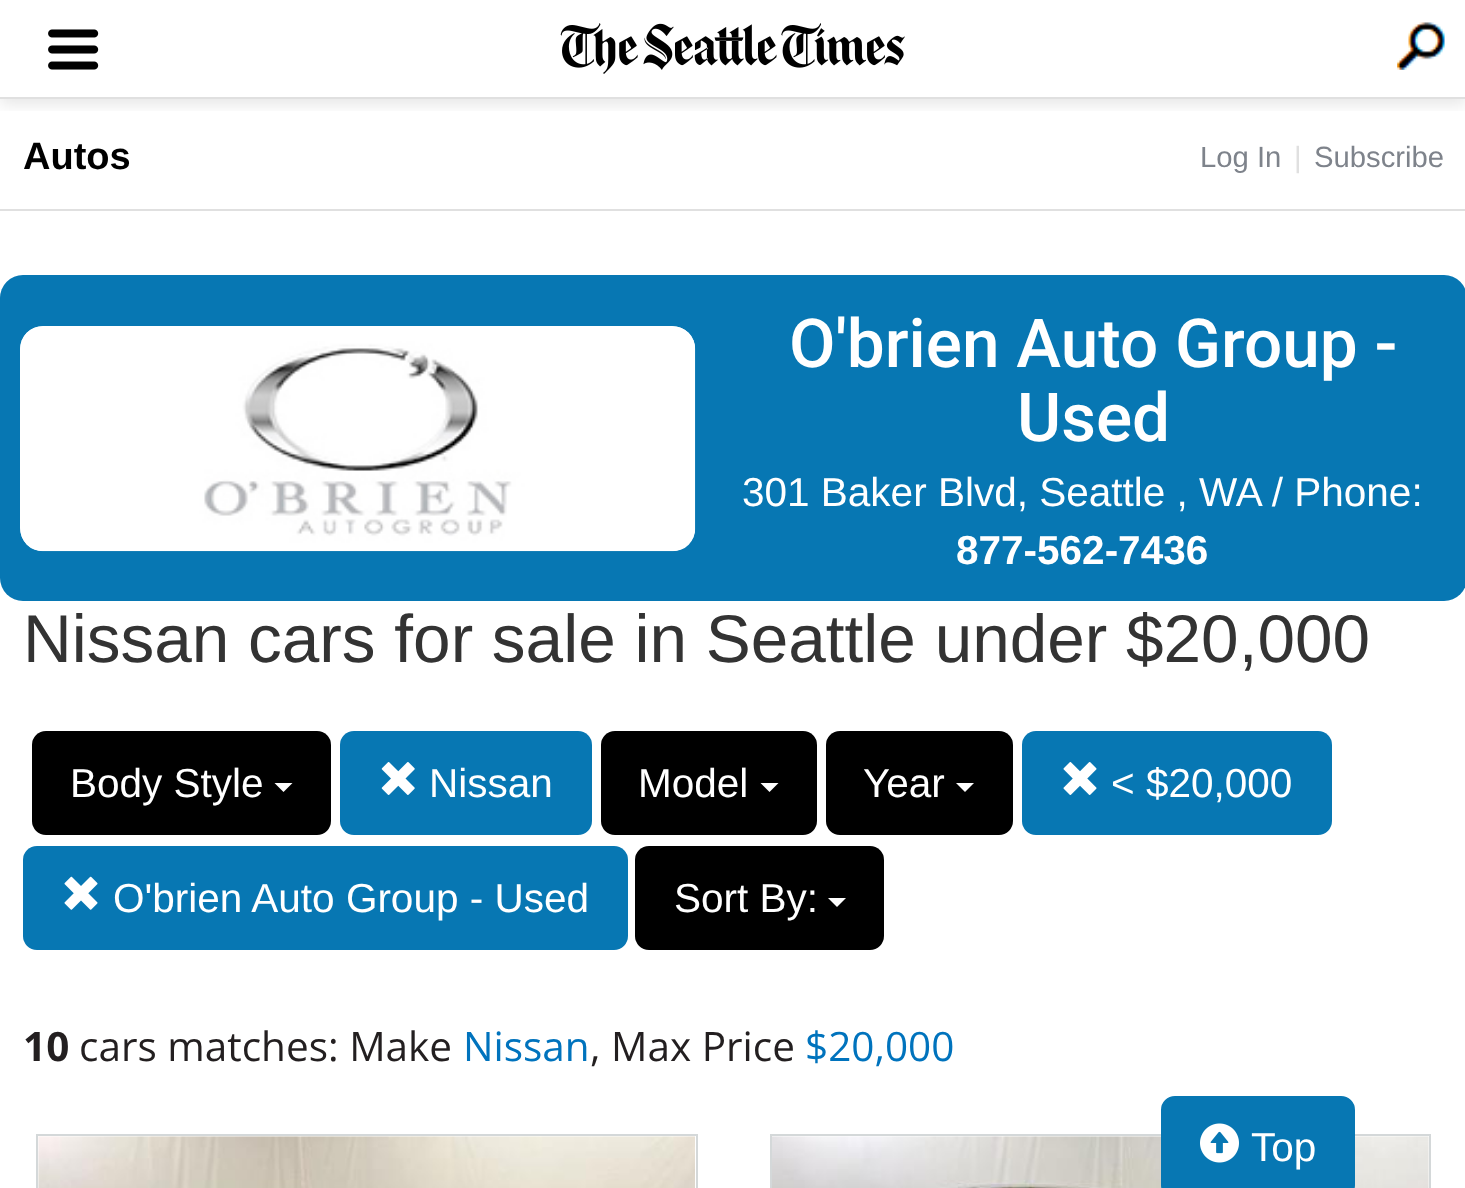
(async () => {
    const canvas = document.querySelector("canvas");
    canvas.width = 1465;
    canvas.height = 1188;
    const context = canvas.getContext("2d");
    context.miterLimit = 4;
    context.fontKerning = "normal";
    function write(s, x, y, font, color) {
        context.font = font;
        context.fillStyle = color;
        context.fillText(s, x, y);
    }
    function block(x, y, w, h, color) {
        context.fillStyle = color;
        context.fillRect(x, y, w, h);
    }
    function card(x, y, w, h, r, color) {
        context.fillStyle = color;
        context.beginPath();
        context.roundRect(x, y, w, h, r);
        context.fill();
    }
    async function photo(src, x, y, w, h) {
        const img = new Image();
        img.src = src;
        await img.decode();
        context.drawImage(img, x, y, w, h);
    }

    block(0, 0, 1465, 1188, "rgb(255, 255, 255)");
    context.save();
    context.beginPath();
    context.rect(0, 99, 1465, 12);
    context.clip();
    context.fillStyle = "rgba(0, 0, 0, 0.1)";
    context.filter = "blur(8px)";
    context.beginPath();
    context.rect(0, 5, 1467, 99);
    context.fill();
    context.filter = "none";
    context.restore();
    block(0, 97, 1465, 2, "rgb(224, 224, 224)");
    await photo("media/1.png", 48, 29, 51, 41);
    await photo("media/2.png", 560, 23, 345, 51);
    await photo("media/3.png", 1397, 22, 48, 48);
    block(0, 209, 1465, 2, "rgb(224, 224, 224)");
    write("Autos", 23, 169, "bold 38px Liberation Sans", "rgb(0, 0, 0)");
    write("Log In", 1200, 167, "29.25px Liberation Sans", "rgb(126, 131, 139)");
    write("|", 1294, 167, "29.25px Liberation Sans", "rgb(224, 224, 224)");
    write("Subscribe", 1314, 167, "29.25px Liberation Sans", "rgb(126, 131, 139)");
    card(0, 275, 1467, 326, 23, "rgb(7, 119, 179)");
    card(20, 326, 675, 225, 23, "rgb(255, 255, 255)");
    await photo("media/4.png", 20, 326, 676, 226);
    write("O'brien Auto Group -", 789, 367, "500 67.5px Roboto", "rgb(255, 255, 255)");
    write("Used", 1017, 441, "500 67.5px Roboto", "rgb(255, 255, 255)");
    write("301 Baker Blvd, Seattle , WA / Phone:", 742, 506, "40.5px Liberation Sans", "rgb(255, 255, 255)");
    write("877-562-7436", 956, 564, "bold 40.5px Liberation Sans", "rgb(255, 255, 255)");
    write("Nissan cars for sale in Seattle under $20,000", 23, 662, "67.5px Liberation Sans", "rgb(51, 51, 51)");
    card(32, 731, 299, 104, 14, "rgb(0, 0, 0)");
    write("Body Style", 70, 797, "40.5px Liberation Sans", "rgb(255, 255, 255)");
    context.beginPath();
    context.moveTo(274.5, 783);
    context.lineTo(292.5, 783);
    context.lineTo(283.5, 792);
    context.closePath();
    context.fill();
    card(340, 731, 252, 104, 14, "rgb(7, 119, 179)");
    await photo("media/5.png", 381, 762, 34, 33);
    write("Nissan", 429, 797, "40.5px Liberation Sans", "rgb(255, 255, 255)");
    card(601, 731, 216, 104, 14, "rgb(0, 0, 0)");
    write("Model", 638, 797, "40.5px Liberation Sans", "rgb(255, 255, 255)");
    context.beginPath();
    context.moveTo(760.5, 783);
    context.lineTo(778.5, 783);
    context.lineTo(769.5, 792);
    context.closePath();
    context.fill();
    card(826, 731, 187, 104, 14, "rgb(0, 0, 0)");
    write("Year", 863, 797, "40.5px Liberation Sans", "rgb(255, 255, 255)");
    context.beginPath();
    context.moveTo(956, 783);
    context.lineTo(974, 783);
    context.lineTo(965, 792);
    context.closePath();
    context.fill();
    card(1022, 731, 310, 104, 14, "rgb(7, 119, 179)");
    await photo("media/6.png", 1063, 762, 34, 33);
    write("< $20,000", 1111, 797, "40.5px Liberation Sans", "rgb(255, 255, 255)");
    card(23, 846, 605, 104, 14, "rgb(7, 119, 179)");
    await photo("media/7.png", 64, 876, 34, 34);
    write("O'brien Auto Group - Used", 113, 912, "40.5px Liberation Sans", "rgb(255, 255, 255)");
    card(635, 846, 249, 104, 14, "rgb(0, 0, 0)");
    write("Sort By:", 674, 912, "40.5px Liberation Sans", "rgb(255, 255, 255)");
    context.beginPath();
    context.moveTo(828, 898);
    context.lineTo(846, 898);
    context.lineTo(837, 907);
    context.closePath();
    context.fill();
    write("10", 23, 1061, "bold 40.5px Open Sans", "rgb(35, 31, 32)");
    write("cars matches: Make", 79, 1061, "40.5px Open Sans", "rgb(35, 31, 32)");
    write("Nissan", 463, 1061, "40.5px Open Sans", "rgb(0, 115, 189)");
    write(", Max Price", 590, 1061, "40.5px Open Sans", "rgb(35, 31, 32)");
    write("$20,000", 805, 1061, "40.5px Open Sans", "rgb(0, 115, 189)");
    context.strokeStyle = "rgb(212, 216, 217)";
    context.lineWidth = 2;
    context.strokeRect(37, 1135, 660, 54);
    await photo("media/8.png", 38, 1136, 657, 52);
    context.strokeRect(771, 1135, 659, 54);
    await photo("media/9.png", 772, 1136, 657, 52);
    context.fillStyle = "rgb(7, 119, 179)";
    context.beginPath();
    context.roundRect(1162, 1097, 192, 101, 13);
    context.fill();
    context.strokeStyle = "rgb(7, 119, 179)";
    context.stroke();
    await photo("media/10.png", 1200, 1123, 39, 40);
    write("Top", 1251, 1161, "40.5px Liberation Sans", "rgb(255, 255, 255)");
})();
